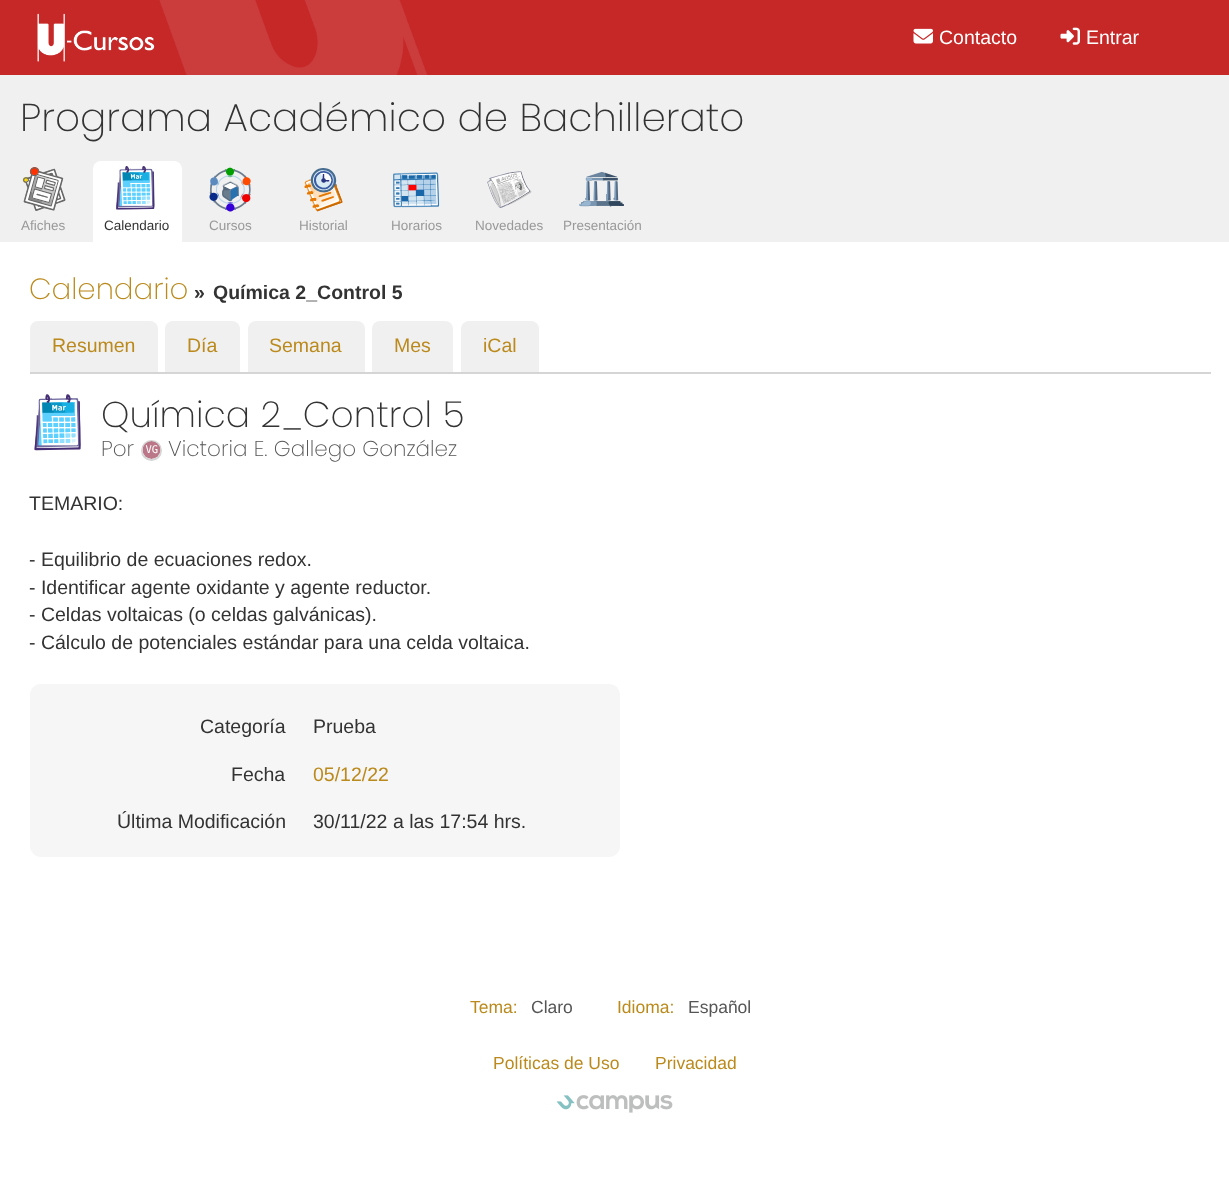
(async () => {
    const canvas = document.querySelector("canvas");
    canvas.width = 1229;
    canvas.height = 1190;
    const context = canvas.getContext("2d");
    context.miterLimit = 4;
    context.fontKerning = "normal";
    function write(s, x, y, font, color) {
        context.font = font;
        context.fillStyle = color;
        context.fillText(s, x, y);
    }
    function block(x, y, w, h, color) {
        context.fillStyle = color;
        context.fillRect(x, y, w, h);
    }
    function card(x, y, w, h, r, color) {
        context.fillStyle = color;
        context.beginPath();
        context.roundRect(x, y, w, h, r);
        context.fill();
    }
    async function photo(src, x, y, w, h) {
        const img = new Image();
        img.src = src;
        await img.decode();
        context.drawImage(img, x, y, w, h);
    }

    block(0, 0, 1229, 1190, "rgb(255, 255, 255)");
    block(0, 0, 1229, 75, "rgb(198, 40, 40)");
    await photo("media/1.png", 37, 13, 118, 49);
    await photo("media/2.png", 159, 0, 268, 75);
    await photo("media/3.png", 913, 28, 20, 16);
    write("Contacto", 939, 44, "19.5px Liberation Sans", "rgb(255, 255, 255)");
    await photo("media/4.png", 1060, 27, 20, 18);
    write("Entrar", 1086, 44, "19.5px Liberation Sans", "rgb(255, 255, 255)");
    block(0, 75, 1229, 167, "rgb(240, 240, 240)");
    write("Programa Académico de Bachillerato", 20, 131, "200 39px Poppins", "rgb(51, 51, 51)");
    await photo("media/5.png", 22, 167, 44, 44);
    write("Afiches", 21, 230, "13.5px Liberation Sans", "rgb(153, 153, 153)");
    context.fillStyle = "rgb(255, 255, 255)";
    context.beginPath();
    context.roundRect(93, 161, 89, 81, [8, 8, 0, 0]);
    context.fill();
    await photo("media/6.png", 116, 166, 39, 44);
    write("Calendario", 104, 230, "13.5px Liberation Sans", "rgb(51, 51, 51)");
    await photo("media/7.png", 209, 167, 42, 45);
    write("Cursos", 209, 230, "13.5px Liberation Sans", "rgb(153, 153, 153)");
    await photo("media/8.png", 304, 168, 39, 44);
    write("Historial", 299, 230, "13.5px Liberation Sans", "rgb(153, 153, 153)");
    await photo("media/9.png", 393, 172, 47, 36);
    write("Horarios", 391, 230, "13.5px Liberation Sans", "rgb(153, 153, 153)");
    await photo("media/10.png", 487, 171, 45, 37);
    write("Novedades", 475, 230, "13.5px Liberation Sans", "rgb(153, 153, 153)");
    await photo("media/11.png", 579, 171, 45, 36);
    write("Presentación", 563, 230, "13.5px Liberation Sans", "rgb(153, 153, 153)");
    write("Calendario", 29, 299, "200 29.25px Poppins", "rgb(187, 138, 29)");
    write("»", 194, 299, "bold 19.5px Liberation Sans", "rgb(51, 51, 51)");
    write("Química 2_Control 5", 213, 299, "bold 19.5px Liberation Sans", "rgb(51, 51, 51)");
    block(30, 372, 1181, 2, "rgb(213, 213, 213)");
    context.fillStyle = "rgb(240, 240, 240)";
    context.beginPath();
    context.roundRect(30, 321, 128, 51, [8, 8, 0, 0]);
    context.fill();
    write("Resumen", 52, 352, "19.5px Liberation Sans", "rgb(187, 138, 29)");
    context.fillStyle = "rgb(240, 240, 240)";
    context.beginPath();
    context.roundRect(165, 321, 75, 51, [8, 8, 0, 0]);
    context.fill();
    write("Día", 187, 352, "19.5px Liberation Sans", "rgb(187, 138, 29)");
    context.fillStyle = "rgb(240, 240, 240)";
    context.beginPath();
    context.roundRect(248, 321, 117, 51, [8, 8, 0, 0]);
    context.fill();
    write("Semana", 269, 352, "19.5px Liberation Sans", "rgb(187, 138, 29)");
    context.fillStyle = "rgb(240, 240, 240)";
    context.beginPath();
    context.roundRect(372, 321, 81, 51, [8, 8, 0, 0]);
    context.fill();
    write("Mes", 394, 352, "19.5px Liberation Sans", "rgb(187, 138, 29)");
    context.fillStyle = "rgb(240, 240, 240)";
    context.beginPath();
    context.roundRect(461, 321, 78, 51, [8, 8, 0, 0]);
    context.fill();
    write("iCal", 483, 352, "19.5px Liberation Sans", "rgb(187, 138, 29)");
    await photo("media/12.png", 34, 394, 47, 57);
    write("Química 2_Control 5", 101, 427, "200 36px Poppins", "rgb(51, 51, 51)");
    write("Por", 101, 456, "200 21.5px Poppins", "rgb(85, 85, 85)");
    context.beginPath();
    context.arc(151.5, 450.5, 9.5, 0, Math.PI * 2);
    context.strokeStyle = "rgb(213, 213, 213)";
    context.lineWidth = 2;
    context.stroke();
    write("Victoria E. Gallego González", 168, 456, "200 21.5px Poppins", "rgb(85, 85, 85)");
    await photo("media/13.png", 143, 441, 18, 18);
    write("TEMARIO:", 29, 510, "19.5px Liberation Sans", "rgb(51, 51, 51)");
    write("- Equilibrio de ecuaciones redox.", 29, 566, "19.5px Liberation Sans", "rgb(51, 51, 51)");
    write("- Identificar agente oxidante y agente reductor.", 29, 594, "19.5px Liberation Sans", "rgb(51, 51, 51)");
    write("- Celdas voltaicas (o celdas galvánicas).", 29, 621, "19.5px Liberation Sans", "rgb(51, 51, 51)");
    write("- Cálculo de potenciales estándar para una celda voltaica.", 29, 649, "19.5px Liberation Sans", "rgb(51, 51, 51)");
    card(30, 684, 590, 173, 11, "rgb(246, 246, 246)");
    write("Categoría", 200, 733, "19.5px Liberation Sans", "rgb(51, 51, 51)");
    write("Prueba", 313, 733, "19.5px Liberation Sans", "rgb(51, 51, 51)");
    write("Fecha", 231, 781, "19.5px Liberation Sans", "rgb(51, 51, 51)");
    write("05/12/22", 313, 781, "19.5px Liberation Sans", "rgb(187, 138, 29)");
    write("Última Modificación", 117, 828, "19.5px Liberation Sans", "rgb(51, 51, 51)");
    write("30/11/22 a las 17:54 hrs.", 313, 828, "19.5px Liberation Sans", "rgb(51, 51, 51)");
    write("Tema:", 470, 1013, "17.5px Liberation Sans", "rgb(187, 138, 29)");
    write("Claro", 531, 1013, "17.5px Liberation Sans", "rgb(85, 85, 85)");
    write("Idioma:", 617, 1013, "17.5px Liberation Sans", "rgb(187, 138, 29)");
    write("Español", 688, 1013, "17.5px Liberation Sans", "rgb(85, 85, 85)");
    write("Políticas de Uso", 493, 1069, "17.5px Liberation Sans", "rgb(187, 138, 29)");
    write("Privacidad", 655, 1069, "17.5px Liberation Sans", "rgb(187, 138, 29)");
    await photo("media/14.png", 557, 1095, 116, 18);
})();
